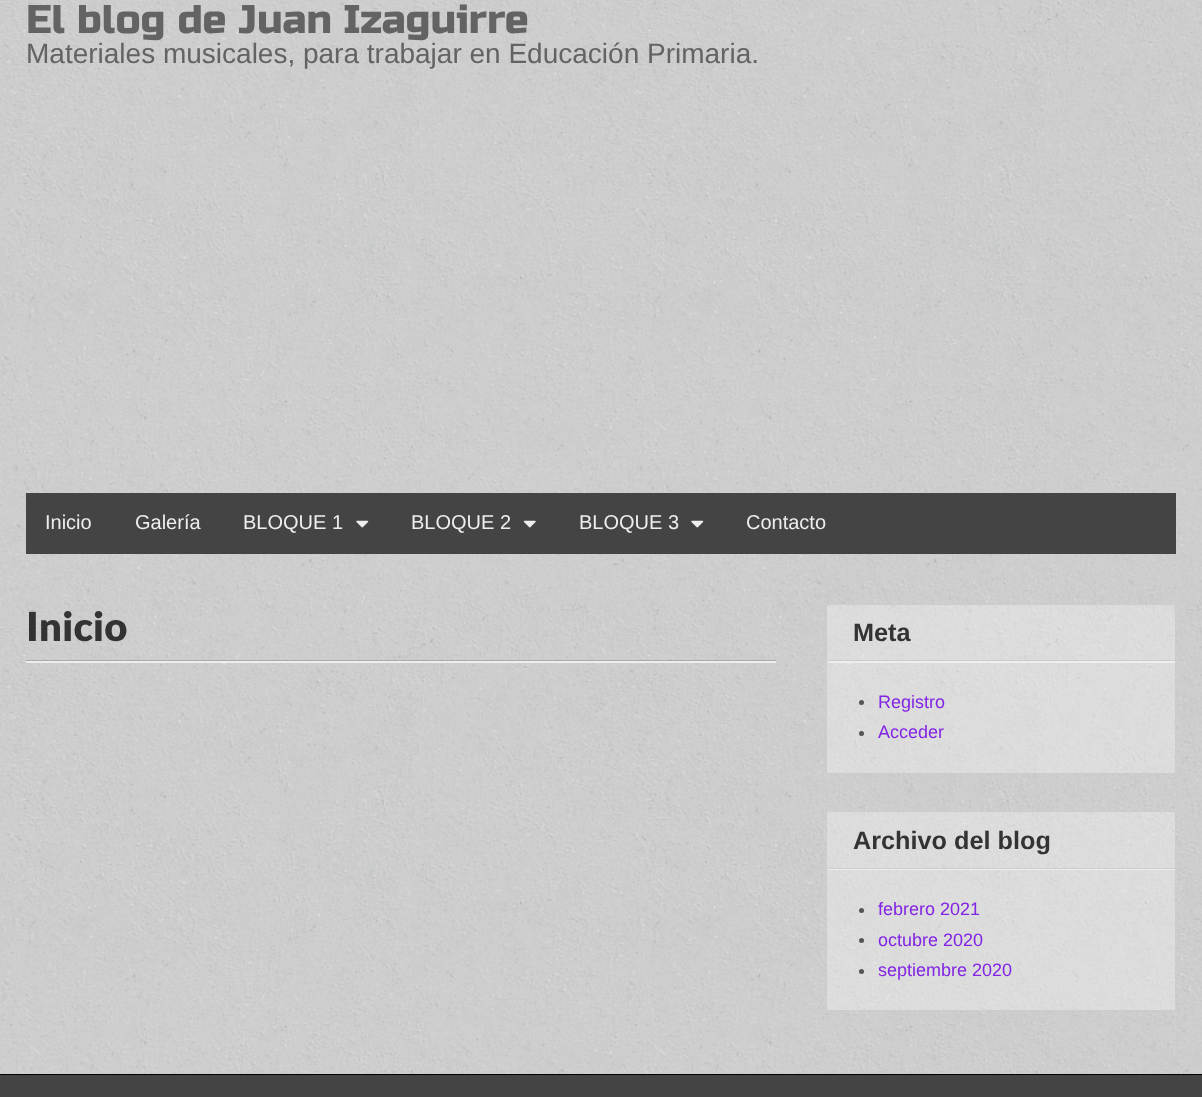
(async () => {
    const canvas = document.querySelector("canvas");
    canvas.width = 1202;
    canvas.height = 1097;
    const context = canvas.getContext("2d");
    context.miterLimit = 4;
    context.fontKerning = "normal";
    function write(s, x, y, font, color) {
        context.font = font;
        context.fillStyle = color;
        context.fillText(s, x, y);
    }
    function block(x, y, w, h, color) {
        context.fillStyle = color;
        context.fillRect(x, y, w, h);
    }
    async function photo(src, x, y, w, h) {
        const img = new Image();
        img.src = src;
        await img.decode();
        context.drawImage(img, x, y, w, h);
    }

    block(0, 0, 1202, 1097, "rgb(255, 255, 255)");
    await photo("media/1.png", 0, 0, 1202, 1074);
    write("El blog de Juan Izaguirre", 26, 33, "40px Russo One", "rgb(99, 99, 99)");
    write("Materiales musicales, para trabajar en Educación Primaria.", 26, 63, "28px Liberation Sans", "rgb(99, 99, 99)");
    block(26, 493, 1150, 61, "rgb(68, 68, 68)");
    write("Inicio", 45, 529, "20px Liberation Sans", "rgb(238, 238, 238)");
    write("Galería", 135, 529, "20px Liberation Sans", "rgb(238, 238, 238)");
    write("BLOQUE 1", 243, 529, "20px Liberation Sans", "rgb(238, 238, 238)");
    await photo("media/2.png", 356, 520, 13, 8);
    write("BLOQUE 2", 411, 529, "20px Liberation Sans", "rgb(238, 238, 238)");
    await photo("media/3.png", 523, 520, 13, 8);
    write("BLOQUE 3", 579, 529, "20px Liberation Sans", "rgb(238, 238, 238)");
    await photo("media/2.png", 691, 520, 13, 8);
    write("Contacto", 746, 529, "20px Liberation Sans", "rgb(238, 238, 238)");
    context.beginPath();
    context.moveTo(26, 605);
    context.lineTo(26, 663);
    context.lineTo(776, 663);
    context.lineTo(776, 661);
    context.lineTo(26, 661);
    context.closePath();
    context.fill();
    block(26, 660, 750, 1, "rgb(170, 170, 170)");
    write("Inicio", 26, 641, "900 40px Lato", "rgb(51, 51, 51)");
    context.fillStyle = "rgba(255, 255, 255, 0.3)";
    context.beginPath();
    context.rect(826.5, 604.5, 349, 169);
    context.fill();
    context.strokeStyle = "rgb(204, 204, 204)";
    context.stroke();
    block(828, 661, 347, 2, "rgb(238, 238, 238)");
    block(828, 660, 347, 1, "rgb(204, 204, 204)");
    write("Meta", 853, 641, "bold 25.25px Liberation Sans", "rgb(51, 51, 51)");
    context.fillStyle = "rgb(85, 85, 85)";
    context.beginPath();
    context.arc(861.5, 702.5, 2.5, 0, Math.PI * 2);
    context.fill();
    write("Registro", 878, 708, "18px Liberation Sans", "rgb(130, 36, 227)");
    context.fillStyle = "rgb(85, 85, 85)";
    context.beginPath();
    context.arc(861.5, 733.5, 2.5, 0, Math.PI * 2);
    context.fill();
    write("Acceder", 878, 738, "18px Liberation Sans", "rgb(130, 36, 227)");
    context.fillStyle = "rgba(255, 255, 255, 0.3)";
    context.beginPath();
    context.rect(826.5, 811.5, 349, 199);
    context.fill();
    context.stroke();
    block(828, 869, 347, 1, "rgb(238, 238, 238)");
    block(828, 868, 347, 1, "rgb(204, 204, 204)");
    write("Archivo del blog", 853, 849, "bold 25.25px Liberation Sans", "rgb(51, 51, 51)");
    context.fillStyle = "rgb(85, 85, 85)";
    context.beginPath();
    context.arc(861.5, 910.5, 2.5, 0, Math.PI * 2);
    context.fill();
    write("febrero 2021", 878, 915, "18px Liberation Sans", "rgb(130, 36, 227)");
    context.fillStyle = "rgb(85, 85, 85)";
    context.beginPath();
    context.arc(861.5, 940.5, 2.5, 0, Math.PI * 2);
    context.fill();
    write("octubre 2020", 878, 946, "18px Liberation Sans", "rgb(130, 36, 227)");
    context.fillStyle = "rgb(85, 85, 85)";
    context.beginPath();
    context.arc(861.5, 971.5, 2.5, 0, Math.PI * 2);
    context.fill();
    write("septiembre 2020", 878, 976, "18px Liberation Sans", "rgb(130, 36, 227)");
    block(0, 1075, 1202, 22, "rgb(68, 68, 68)");
    block(0, 1074, 1202, 1, "rgb(0, 0, 0)");
})();
